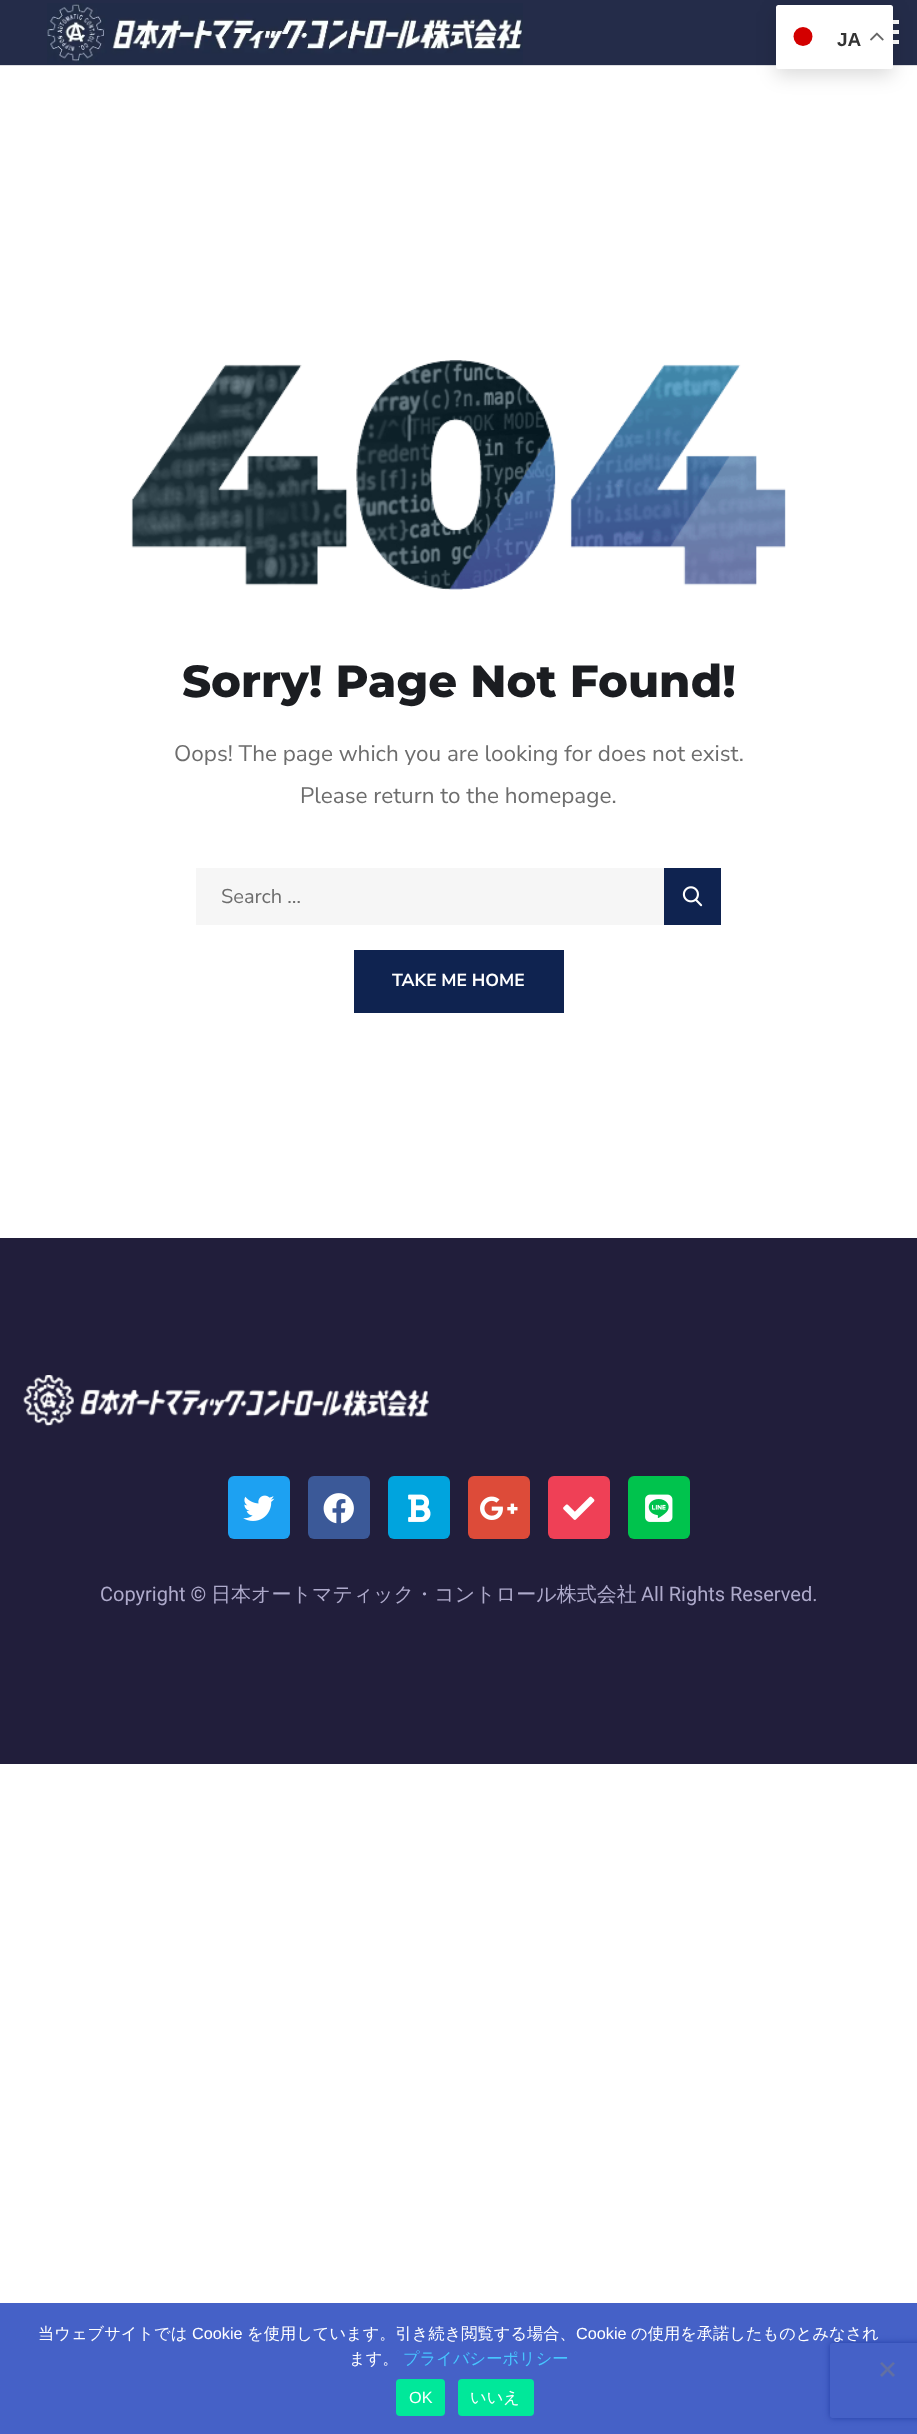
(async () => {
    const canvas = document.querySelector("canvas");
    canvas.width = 917;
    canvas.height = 2434;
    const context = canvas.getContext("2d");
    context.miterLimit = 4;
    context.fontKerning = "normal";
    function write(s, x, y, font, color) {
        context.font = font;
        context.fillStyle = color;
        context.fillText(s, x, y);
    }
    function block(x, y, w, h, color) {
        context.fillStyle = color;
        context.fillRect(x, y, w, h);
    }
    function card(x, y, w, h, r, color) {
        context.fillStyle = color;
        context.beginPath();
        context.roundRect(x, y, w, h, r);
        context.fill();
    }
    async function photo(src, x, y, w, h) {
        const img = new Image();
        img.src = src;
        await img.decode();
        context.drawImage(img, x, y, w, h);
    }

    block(0, 0, 917, 2434, "rgb(255, 255, 255)");
    block(0, 2303, 917, 131, "rgb(69, 97, 199)");
    block(0, 65, 917, 1, "rgb(220, 221, 225)");
    block(0, 0, 917, 65, "rgb(36, 44, 73)");
    block(893, 30, 6, 4, "rgb(255, 255, 255)");
    block(893, 20, 6, 4, "rgb(255, 255, 255)");
    block(893, 40, 6, 4, "rgb(255, 255, 255)");
    context.fillStyle = "rgba(0, 0, 0, 0.15)";
    context.filter = "blur(9.5px)";
    context.beginPath();
    context.roundRect(776, 11, 117, 64, 2.5);
    context.fill();
    context.filter = "none";
    card(776, 5, 117, 64, 2.5, "rgb(255, 255, 255)");
    context.fillStyle = "rgb(211, 0, 0)";
    context.beginPath();
    context.arc(803, 36.5, 9.5, 0, Math.PI * 2);
    context.fill();
    write("JA", 837, 46, "bold 19px Liberation Sans", "rgb(51, 51, 51)");
    await photo("media/1.png", 870, 32, 14, 9);
    await photo("media/2.png", 47, 3, 476, 61);
    await photo("media/3.png", 131, 360, 655, 230);
    write("Sorry! Page Not Found!", 182, 697, "800 45px Montserrat", "rgb(27, 29, 33)");
    write("Oops! The page which you are looking for does not exist.", 174, 761, "22.5px Nunito Sans", "rgb(109, 109, 109)");
    write("Please return to the homepage.", 300, 803, "22.5px Nunito Sans", "rgb(109, 109, 109)");
    block(196, 868, 468, 57, "rgb(246, 246, 246)");
    write("Search …", 221, 903, "20px Nunito Sans", "rgb(109, 109, 109)");
    block(664, 868, 57, 57, "rgb(15, 35, 80)");
    await photo("media/4.png", 682, 886, 21, 21);
    block(354, 950, 210, 63, "rgb(15, 35, 80)");
    write("TAKE ME HOME", 392, 986, "bold 17.5px Nunito Sans", "rgb(255, 255, 255)");
    block(0, 1238, 917, 526, "rgb(33, 30, 59)");
    await photo("media/5.png", 23, 1375, 406, 52);
    card(228, 1476, 62, 63, 6, "rgb(29, 161, 242)");
    await photo("media/6.png", 243, 1495, 32, 26);
    card(308, 1476, 62, 63, 6, "rgb(59, 89, 152)");
    await photo("media/7.png", 323, 1493, 31, 31);
    card(388, 1476, 62, 63, 6, "rgb(0, 164, 222)");
    await photo("media/8.png", 408, 1494, 23, 28);
    card(468, 1476, 62, 63, 6, "rgb(221, 75, 57)");
    await photo("media/9.png", 480, 1496, 38, 24);
    card(548, 1476, 62, 63, 6, "rgb(239, 64, 86)");
    await photo("media/10.png", 563, 1496, 32, 24);
    card(628, 1476, 62, 63, 6, "rgb(0, 195, 77)");
    await photo("media/11.png", 645, 1494, 28, 28);
    write("Copyright ©", 100, 1601, "20px Roboto", "rgb(174, 170, 203)");
    write("日本オートマティック・コントロール株式会社", 211, 1601, "500 20px WenQuanYi Zen Hei", "rgb(174, 170, 203)");
    write("All Rights Reserved.", 641, 1601, "20px Roboto", "rgb(174, 170, 203)");
    write("当ウェブサイトでは", 38, 2339, "500 16.25px WenQuanYi Zen Hei", "rgb(255, 255, 255)");
    write("Cookie", 192, 2339, "16.25px Liberation Sans", "rgb(255, 255, 255)");
    write("を使用しています。引き続き閲覧する場合、", 247, 2339, "500 16.25px WenQuanYi Zen Hei", "rgb(255, 255, 255)");
    write("Cookie", 576, 2339, "16.25px Liberation Sans", "rgb(255, 255, 255)");
    context.save();
    context.beginPath();
    context.moveTo(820, 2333);
    context.lineTo(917, 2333);
    context.lineTo(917, 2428);
    context.lineTo(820, 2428);
    context.closePath();
    context.moveTo(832.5, 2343);
    context.lineTo(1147.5, 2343);
    context.bezierCurveTo(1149, 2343, 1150, 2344, 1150, 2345.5);
    context.lineTo(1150, 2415.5);
    context.bezierCurveTo(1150, 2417, 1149, 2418, 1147.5, 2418);
    context.lineTo(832.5, 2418);
    context.bezierCurveTo(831, 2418, 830, 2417, 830, 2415.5);
    context.lineTo(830, 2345.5);
    context.bezierCurveTo(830, 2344, 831, 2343, 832.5, 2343);
    context.closePath();
    context.clip("evenodd");
    context.fillStyle = "rgb(35, 62, 165)";
    context.filter = "blur(3px)";
    context.beginPath();
    context.roundRect(830, 2343, 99, 75, 2.5);
    context.fill();
    context.filter = "none";
    context.restore();
    write("の使用を承諾したものとみなされ", 631, 2339, "500 16.25px WenQuanYi Zen Hei", "rgb(255, 255, 255)");
    write("ます。", 349, 2364, "500 16.25px WenQuanYi Zen Hei", "rgb(255, 255, 255)");
    write("プライバシーポリシー", 403, 2364, "500 16.25px WenQuanYi Zen Hei", "rgb(71, 198, 255)");
    context.fillStyle = "rgb(98, 112, 163)";
    context.beginPath();
    context.moveTo(893, 2362);
    context.lineTo(895, 2363.5);
    context.lineTo(882, 2377);
    context.lineTo(880, 2375);
    context.closePath();
    context.fill();
    context.beginPath();
    context.moveTo(880, 2363.5);
    context.lineTo(882, 2362);
    context.lineTo(895, 2375);
    context.lineTo(893, 2377);
    context.closePath();
    context.fill();
    card(396, 2379, 49, 37, 4, "rgb(0, 232, 154)");
    write("OK", 409, 2403, "16.25px Liberation Sans", "rgb(255, 255, 255)");
    card(458, 2379, 76, 37, 4, "rgb(0, 232, 154)");
    write("いいえ", 470, 2403, "500 16.25px WenQuanYi Zen Hei", "rgb(255, 255, 255)");
})();
